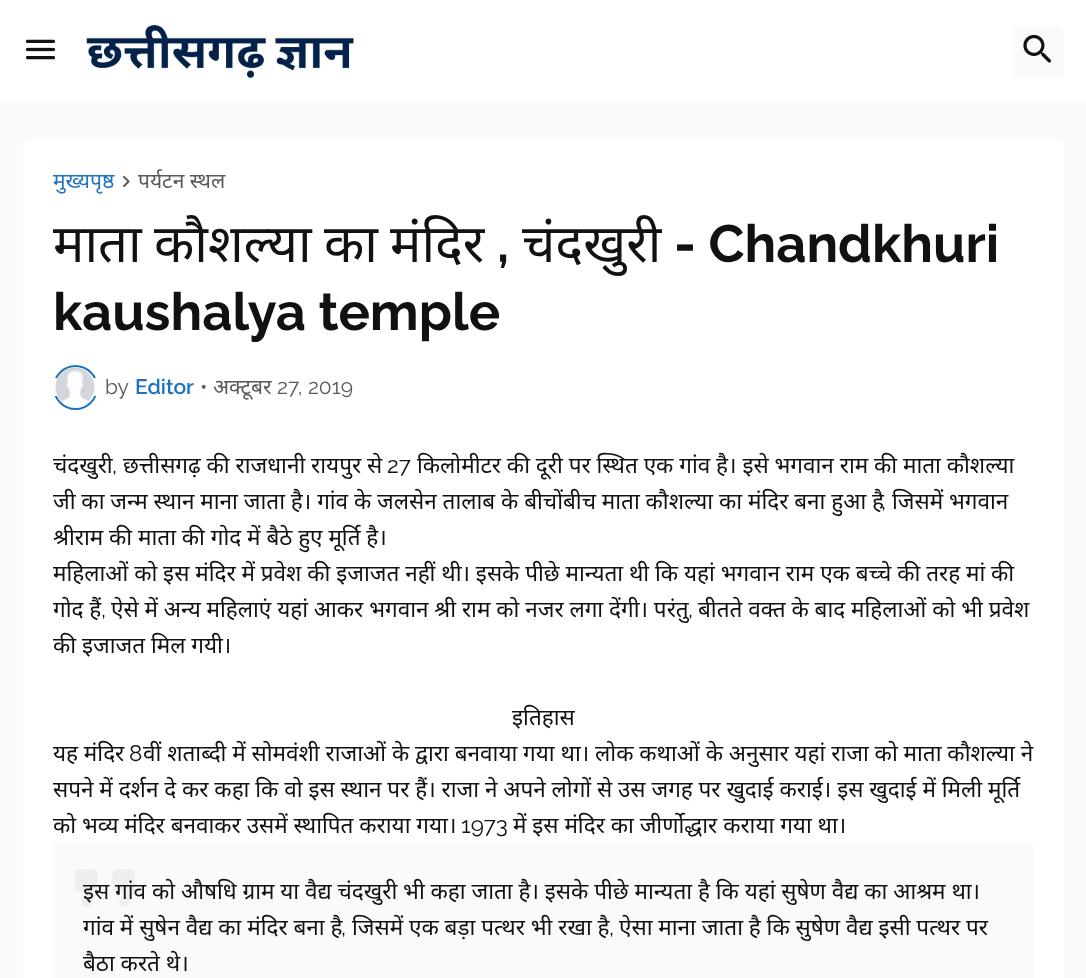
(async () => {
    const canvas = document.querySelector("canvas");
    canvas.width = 1086;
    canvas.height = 978;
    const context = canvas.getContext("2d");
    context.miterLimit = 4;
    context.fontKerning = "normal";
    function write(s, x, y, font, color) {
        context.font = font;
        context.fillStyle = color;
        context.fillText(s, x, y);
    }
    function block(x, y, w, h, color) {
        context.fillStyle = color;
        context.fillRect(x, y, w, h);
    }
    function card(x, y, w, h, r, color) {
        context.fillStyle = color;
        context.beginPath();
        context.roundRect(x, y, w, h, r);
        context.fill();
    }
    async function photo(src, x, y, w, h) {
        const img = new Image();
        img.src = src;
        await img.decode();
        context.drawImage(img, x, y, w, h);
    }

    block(0, 0, 1086, 978, "rgb(250, 250, 250)");
    block(0, 0, 1086, 102, "rgb(255, 255, 255)");
    await photo("media/1.png", 25, 39, 31, 21);
    await photo("media/2.png", 86, 25, 268, 54);
    card(1013, 26, 51, 51, 6, "rgb(250, 250, 250)");
    await photo("media/3.png", 1023, 34, 29, 29);
    card(23, 140, 1041, 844, 6, "rgb(255, 255, 255)");
    write("मुख्यपृष्ठ", 53, 188, "21px Noto Sans", "rgb(30, 115, 190)");
    await photo("media/4.png", 123, 176, 7, 11);
    write("पर्यटन स्थल", 138, 188, "21px Noto Sans", "rgb(89, 89, 89)");
    write("माता", 53, 262, "52.5px Noto Sans", "rgb(17, 17, 17)");
    write("कौशल्या", 154, 262, "52.5px Noto Sans", "rgb(17, 17, 17)");
    write("का", 324, 262, "52.5px Noto Sans", "rgb(17, 17, 17)");
    write("मंदिर", 390, 262, "52.5px Noto Sans", "rgb(17, 17, 17)");
    write(",", 497, 262, "bold 52.5px Raleway", "rgb(17, 17, 17)");
    write("चंदखुरी", 522, 262, "52.5px Noto Sans", "rgb(17, 17, 17)");
    write("- Chandkhuri", 674, 262, "bold 52.5px Raleway", "rgb(17, 17, 17)");
    write("kaushalya temple", 53, 330, "bold 52.5px Raleway", "rgb(17, 17, 17)");
    context.beginPath();
    context.arc(75.5, 387.5, 21.5, 0, Math.PI * 2);
    context.strokeStyle = "rgb(30, 115, 190)";
    context.lineWidth = 2;
    context.stroke();
    block(53, 378, 45, 18, "rgb(255, 255, 255)");
    await photo("media/5.png", 55, 367, 40, 35);
    write("by", 105, 394, "21px Raleway", "rgb(89, 89, 89)");
    write("Editor", 135, 394, "600 21px Raleway", "rgb(30, 115, 190)");
    write("•", 200, 394, "21px Raleway", "rgb(89, 89, 89)");
    write("अक्टूबर", 213, 394, "21px Noto Sans", "rgb(89, 89, 89)");
    write("27, 2019", 277, 394, "21px Raleway", "rgb(89, 89, 89)");
    write("चंदखुरी", 53, 473, "22.5px Noto Sans", "rgb(17, 17, 17)");
    write(",", 112, 473, "22.5px Raleway", "rgb(17, 17, 17)");
    write("छत्तीसगढ़ की राजधानी रायपुर से", 123, 473, "22.5px Noto Sans", "rgb(17, 17, 17)");
    write("27", 387, 473, "22.5px Raleway", "rgb(17, 17, 17)");
    write("किलोमीटर की दूरी पर स्थित एक गांव है। इसे भगवान राम की माता कौशल्या", 417, 473, "22.5px Noto Sans", "rgb(17, 17, 17)");
    write("जी का जन्म स्थान माना जाता है। गांव के जलसेन तालाब के बीचोंबीच माता कौशल्या का मंदिर बना हुआ है", 53, 509, "22.5px Noto Sans", "rgb(17, 17, 17)");
    write(",", 881, 509, "22.5px Raleway", "rgb(17, 17, 17)");
    write("जिसमें भगवान", 892, 509, "22.5px Noto Sans", "rgb(17, 17, 17)");
    write("श्रीराम की माता की गोद में बैठे हुए मूर्ति है।", 53, 545, "22.5px Noto Sans", "rgb(17, 17, 17)");
    write("महिलाओं को इस मंदिर में प्रवेश की इजाजत नहीं थी। इसके पीछे मान्यता थी कि यहां भगवान राम एक बच्चे की तरह मां की", 53, 581, "22.5px Noto Sans", "rgb(17, 17, 17)");
    write("गोद हैं", 53, 617, "22.5px Noto Sans", "rgb(17, 17, 17)");
    write(",", 101, 617, "22.5px Raleway", "rgb(17, 17, 17)");
    write("ऐसे में अन्य महिलाएं यहां आकर भगवान श्री राम को नजर लगा देंगी। परंतु", 111, 617, "22.5px Noto Sans", "rgb(17, 17, 17)");
    write("बीतते वक्त के बाद महिलाओं को भी प्रवेश", 698, 617, "22.5px Noto Sans", "rgb(17, 17, 17)");
    write(",", 688, 617, "22.5px Raleway", "rgb(17, 17, 17)");
    write("की इजाजत मिल गयी।", 53, 653, "22.5px Noto Sans", "rgb(17, 17, 17)");
    write("इतिहास", 512, 725, "22.5px Noto Sans", "rgb(17, 17, 17)");
    write("यह मंदिर", 53, 761, "22.5px Noto Sans", "rgb(17, 17, 17)");
    write("8", 129, 761, "22.5px Raleway", "rgb(17, 17, 17)");
    write("वीं शताब्दी में सोमवंशी राजाओं के द्वारा बनवाया गया था। लोक कथाओं के अनुसार यहां राजा को माता कौशल्या ने", 143, 761, "22.5px Noto Sans", "rgb(17, 17, 17)");
    write("सपने में दर्शन दे कर कहा कि वो इस स्थान पर हैं। राजा ने अपने लोगों से उस जगह पर खुदाई कराई। इस खुदाई में मिली मूर्ति", 53, 797, "22.5px Noto Sans", "rgb(17, 17, 17)");
    write("को भव्य मंदिर बनवाकर उसमें स्थापित कराया गया।", 53, 833, "22.5px Noto Sans", "rgb(17, 17, 17)");
    write("1973", 461, 833, "22.5px Raleway", "rgb(17, 17, 17)");
    write("में इस मंदिर का जीर्णोद्धार कराया गया था।", 513, 833, "22.5px Noto Sans", "rgb(17, 17, 17)");
    card(53, 843, 981, 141, 6, "rgb(250, 250, 250)");
    write("इस गांव को औषधि ग्राम या वैद्य चंदखुरी भी कहा जाता है। इसके पीछे मान्यता है कि यहां सुषेण वैद्य का आश्रम था।", 83, 899, "22.5px Noto Sans", "rgb(17, 17, 17)");
    await photo("media/6.png", 75, 869, 60, 38);
    write("गांव में सुषेन वैद्य का मंदिर बना है", 83, 935, "22.5px Noto Sans", "rgb(17, 17, 17)");
    write(",", 341, 935, "22.5px Raleway", "rgb(17, 17, 17)");
    write("जिसमें एक बड़ा पत्थर भी रखा है", 352, 935, "22.5px Noto Sans", "rgb(17, 17, 17)");
    write(",", 609, 935, "22.5px Raleway", "rgb(17, 17, 17)");
    write("ऐसा माना जाता है कि सुषेण वैद्य इसी पत्थर पर", 619, 935, "22.5px Noto Sans", "rgb(17, 17, 17)");
    write("बैठा करते थे।", 83, 971, "22.5px Noto Sans", "rgb(17, 17, 17)");
})();
